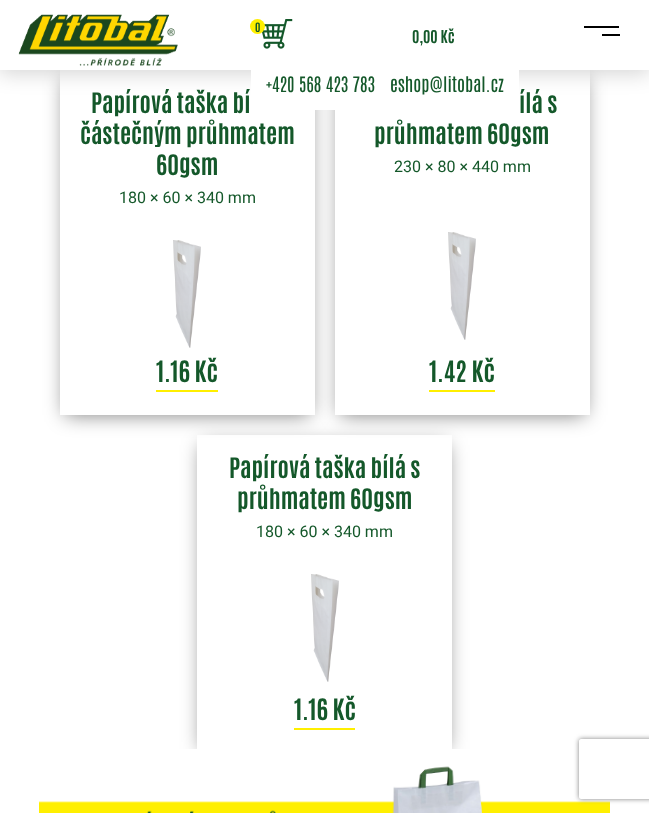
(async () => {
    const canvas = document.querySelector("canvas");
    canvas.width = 649;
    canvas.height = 813;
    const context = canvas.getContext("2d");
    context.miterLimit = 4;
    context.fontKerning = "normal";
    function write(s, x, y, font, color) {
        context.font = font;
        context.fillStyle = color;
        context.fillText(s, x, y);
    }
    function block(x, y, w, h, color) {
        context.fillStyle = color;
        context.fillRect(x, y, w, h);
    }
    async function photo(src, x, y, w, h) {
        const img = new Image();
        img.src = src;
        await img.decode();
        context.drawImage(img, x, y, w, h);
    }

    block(0, 0, 649, 813, "rgb(255, 255, 255)");
    context.fillStyle = "rgba(0, 0, 0, 0.16)";
    context.filter = "blur(10px)";
    context.beginPath();
    context.rect(-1, 2, 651, 72);
    context.fill();
    context.filter = "none";
    context.save();
    context.beginPath();
    context.moveTo(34, 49);
    context.lineTo(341, 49);
    context.lineTo(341, 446);
    context.lineTo(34, 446);
    context.closePath();
    context.moveTo(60, 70);
    context.lineTo(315, 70);
    context.lineTo(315, 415);
    context.lineTo(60, 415);
    context.closePath();
    context.clip("evenodd");
    context.fillStyle = "rgba(0, 0, 0, 0.5)";
    context.filter = "blur(10px)";
    context.beginPath();
    context.rect(65, 80, 245, 335);
    context.fill();
    context.filter = "none";
    context.restore();
    context.save();
    context.beginPath();
    context.moveTo(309, 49);
    context.lineTo(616, 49);
    context.lineTo(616, 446);
    context.lineTo(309, 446);
    context.closePath();
    context.moveTo(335, 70);
    context.lineTo(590, 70);
    context.lineTo(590, 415);
    context.lineTo(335, 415);
    context.closePath();
    context.clip("evenodd");
    context.fillStyle = "rgba(0, 0, 0, 0.5)";
    context.filter = "blur(10px)";
    context.beginPath();
    context.rect(340, 80, 245, 335);
    context.fill();
    context.filter = "none";
    context.restore();
    block(0, 0, 649, 70, "rgb(255, 255, 255)");
    await photo("media/1.png", 18, 14, 160, 52);
    await photo("media/2.png", 262, 19, 31, 30);
    context.fillStyle = "rgb(255, 239, 0)";
    context.beginPath();
    context.arc(257.5, 26.5, 7.5, 0, Math.PI * 2);
    context.fill();
    write("0", 255, 32, "bold 11px Antonio", "rgb(20, 88, 42)");
    write("0,00 Kč", 412, 43, "bold 15px Antonio", "rgb(20, 88, 42)");
    block(584, 26, 35, 2, "rgb(0, 0, 0)");
    block(602, 34, 18, 2, "rgb(0, 0, 0)");
    block(251, 70, 268, 40, "rgb(255, 255, 255)");
    write("+420 568 423 783", 266, 92, "18px Antonio", "rgb(20, 88, 42)");
    write("eshop@litobal.cz", 390, 92, "18px Antonio", "rgb(20, 88, 42)");
    write("Papírová taška bí", 91, 113, "bold 24px Antonio", "rgb(20, 88, 42)");
    write("částečným průhmatem", 80, 144, "bold 24px Antonio", "rgb(20, 88, 42)");
    write("60gsm", 156, 175, "bold 24px Antonio", "rgb(20, 88, 42)");
    write("180 × 60 × 340 mm", 119, 203, "16px Roboto", "rgb(20, 88, 42)");
    await photo("media/3.png", 173, 240, 28, 108);
    block(156, 390, 62, 2, "rgb(255, 239, 0)");
    write("1.16 Kč", 156, 382, "bold 25px Antonio", "rgb(20, 88, 42)");
    write("ílá s", 519, 113, "bold 24px Antonio", "rgb(20, 88, 42)");
    write("průhmatem 60gsm", 374, 144, "bold 24px Antonio", "rgb(20, 88, 42)");
    write("230 × 80 × 440 mm", 394, 172, "16px Roboto", "rgb(20, 88, 42)");
    await photo("media/4.png", 448, 232, 28, 108);
    block(429, 390, 66, 2, "rgb(255, 239, 0)");
    write("1.42 Kč", 429, 382, "bold 25px Antonio", "rgb(20, 88, 42)");
    context.save();
    context.beginPath();
    context.moveTo(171, 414);
    context.lineTo(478, 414);
    context.lineTo(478, 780);
    context.lineTo(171, 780);
    context.closePath();
    context.moveTo(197, 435);
    context.lineTo(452, 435);
    context.lineTo(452, 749);
    context.lineTo(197, 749);
    context.closePath();
    context.clip("evenodd");
    context.fillStyle = "rgba(0, 0, 0, 0.5)";
    context.filter = "blur(10px)";
    context.beginPath();
    context.rect(202, 445, 245, 304);
    context.fill();
    context.filter = "none";
    context.restore();
    write("Papírová taška bílá s", 229, 478, "bold 24px Antonio", "rgb(20, 88, 42)");
    write("průhmatem 60gsm", 237, 509, "bold 24px Antonio", "rgb(20, 88, 42)");
    write("180 × 60 × 340 mm", 256, 537, "16px Roboto", "rgb(20, 88, 42)");
    await photo("media/4.png", 311, 574, 28, 108);
    block(294, 728, 61, 2, "rgb(255, 239, 0)");
    write("1.16 Kč", 294, 720, "bold 25px Antonio", "rgb(20, 88, 42)");
    await photo("media/5.png", 39, 749, 571, 64);
    context.save();
    context.beginPath();
    context.moveTo(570, 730);
    context.lineTo(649, 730);
    context.lineTo(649, 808);
    context.lineTo(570, 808);
    context.closePath();
    context.moveTo(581, 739);
    context.lineTo(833, 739);
    context.bezierCurveTo(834, 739, 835, 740, 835, 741);
    context.lineTo(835, 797);
    context.bezierCurveTo(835, 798, 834, 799, 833, 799);
    context.lineTo(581, 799);
    context.bezierCurveTo(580, 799, 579, 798, 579, 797);
    context.lineTo(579, 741);
    context.bezierCurveTo(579, 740, 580, 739, 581, 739);
    context.closePath();
    context.clip("evenodd");
    context.fillStyle = "rgb(128, 128, 128)";
    context.filter = "blur(2.5px)";
    context.beginPath();
    context.roundRect(579, 739, 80, 60, 2);
    context.fill();
    context.filter = "none";
    context.restore();
})();
